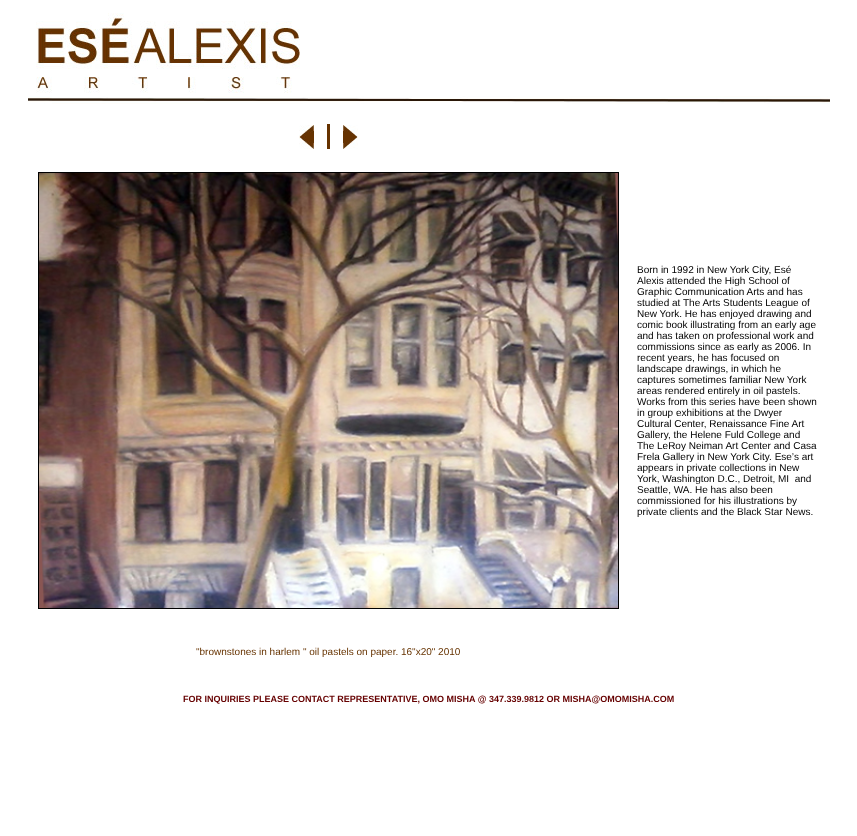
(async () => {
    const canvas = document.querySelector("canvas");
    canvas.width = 857;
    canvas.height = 836;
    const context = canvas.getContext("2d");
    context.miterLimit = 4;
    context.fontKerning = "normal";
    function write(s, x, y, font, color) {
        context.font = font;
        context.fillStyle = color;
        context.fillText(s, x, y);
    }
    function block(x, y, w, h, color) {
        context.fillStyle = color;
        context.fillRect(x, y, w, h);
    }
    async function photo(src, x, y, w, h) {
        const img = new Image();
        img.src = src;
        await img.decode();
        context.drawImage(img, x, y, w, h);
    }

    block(0, 0, 857, 836, "rgb(255, 255, 255)");
    await photo("media/1.png", 36, 13, 264, 80);
    await photo("media/2.png", 28, 96, 802, 8);
    await photo("media/3.png", 299, 125, 15, 24);
    block(327, 124, 3, 25, "rgb(102, 50, 0)");
    await photo("media/4.png", 343, 125, 15, 24);
    context.strokeStyle = "rgb(0, 0, 0)";
    context.strokeRect(38.5, 172.5, 580, 436);
    await photo("media/5.png", 39, 173, 579, 435);
    write("Born in 1992 in New York City, Esé", 637, 273, "10px Liberation Sans", "rgb(0, 0, 0)");
    write("Alexis attended the High School of", 637, 284, "10px Liberation Sans", "rgb(0, 0, 0)");
    write("Graphic Communication Arts and has", 637, 295, "10px Liberation Sans", "rgb(0, 0, 0)");
    write("studied at The Arts Students League of", 637, 306, "10px Liberation Sans", "rgb(0, 0, 0)");
    write("New York. He has enjoyed drawing and", 637, 317, "10px Liberation Sans", "rgb(0, 0, 0)");
    write("comic book illustrating from an early age", 637, 328, "10px Liberation Sans", "rgb(0, 0, 0)");
    write("and has taken on professional work and", 637, 339, "10px Liberation Sans", "rgb(0, 0, 0)");
    write("commissions since as early as 2006. In", 637, 350, "10px Liberation Sans", "rgb(0, 0, 0)");
    write("recent years, he has focused on", 637, 361, "10px Liberation Sans", "rgb(0, 0, 0)");
    write("landscape drawings, in which he", 637, 372, "10px Liberation Sans", "rgb(0, 0, 0)");
    write("captures sometimes familiar New York", 637, 383, "10px Liberation Sans", "rgb(0, 0, 0)");
    write("areas rendered entirely in oil pastels.", 637, 394, "10px Liberation Sans", "rgb(0, 0, 0)");
    write("Works from this series have been shown", 637, 405, "10px Liberation Sans", "rgb(0, 0, 0)");
    write("in group exhibitions at the Dwyer", 637, 416, "10px Liberation Sans", "rgb(0, 0, 0)");
    write("Cultural Center, Renaissance Fine Art", 637, 427, "10px Liberation Sans", "rgb(0, 0, 0)");
    write("Gallery, the Helene Fuld College and", 637, 438, "10px Liberation Sans", "rgb(0, 0, 0)");
    write("The LeRoy Neiman Art Center and Casa", 637, 449, "10px Liberation Sans", "rgb(0, 0, 0)");
    write("Frela Gallery in New York City. Ese’s art", 637, 460, "10px Liberation Sans", "rgb(0, 0, 0)");
    write("appears in private collections in New", 637, 471, "10px Liberation Sans", "rgb(0, 0, 0)");
    write("York, Washington D.C., Detroit, MI  and", 637, 482, "10px Liberation Sans", "rgb(0, 0, 0)");
    write("Seattle, WA. He has also been", 637, 493, "10px Liberation Sans", "rgb(0, 0, 0)");
    write("commissioned for his illustrations by", 637, 504, "10px Liberation Sans", "rgb(0, 0, 0)");
    write("private clients and the Black Star News.", 637, 515, "10px Liberation Sans", "rgb(0, 0, 0)");
    write("\"brownstones in harlem \" oil pastels on paper. 16\"x20\" 2010", 196, 655, "10px Liberation Sans", "rgb(102, 51, 0)");
    write("FOR INQUIRIES PLEASE CONTACT REPRESENTATIVE, OMO MISHA @ 347.339.9812 OR MISHA@OMOMISHA.COM", 183, 702, "bold 9px Liberation Sans", "rgb(102, 0, 0)");
})();
